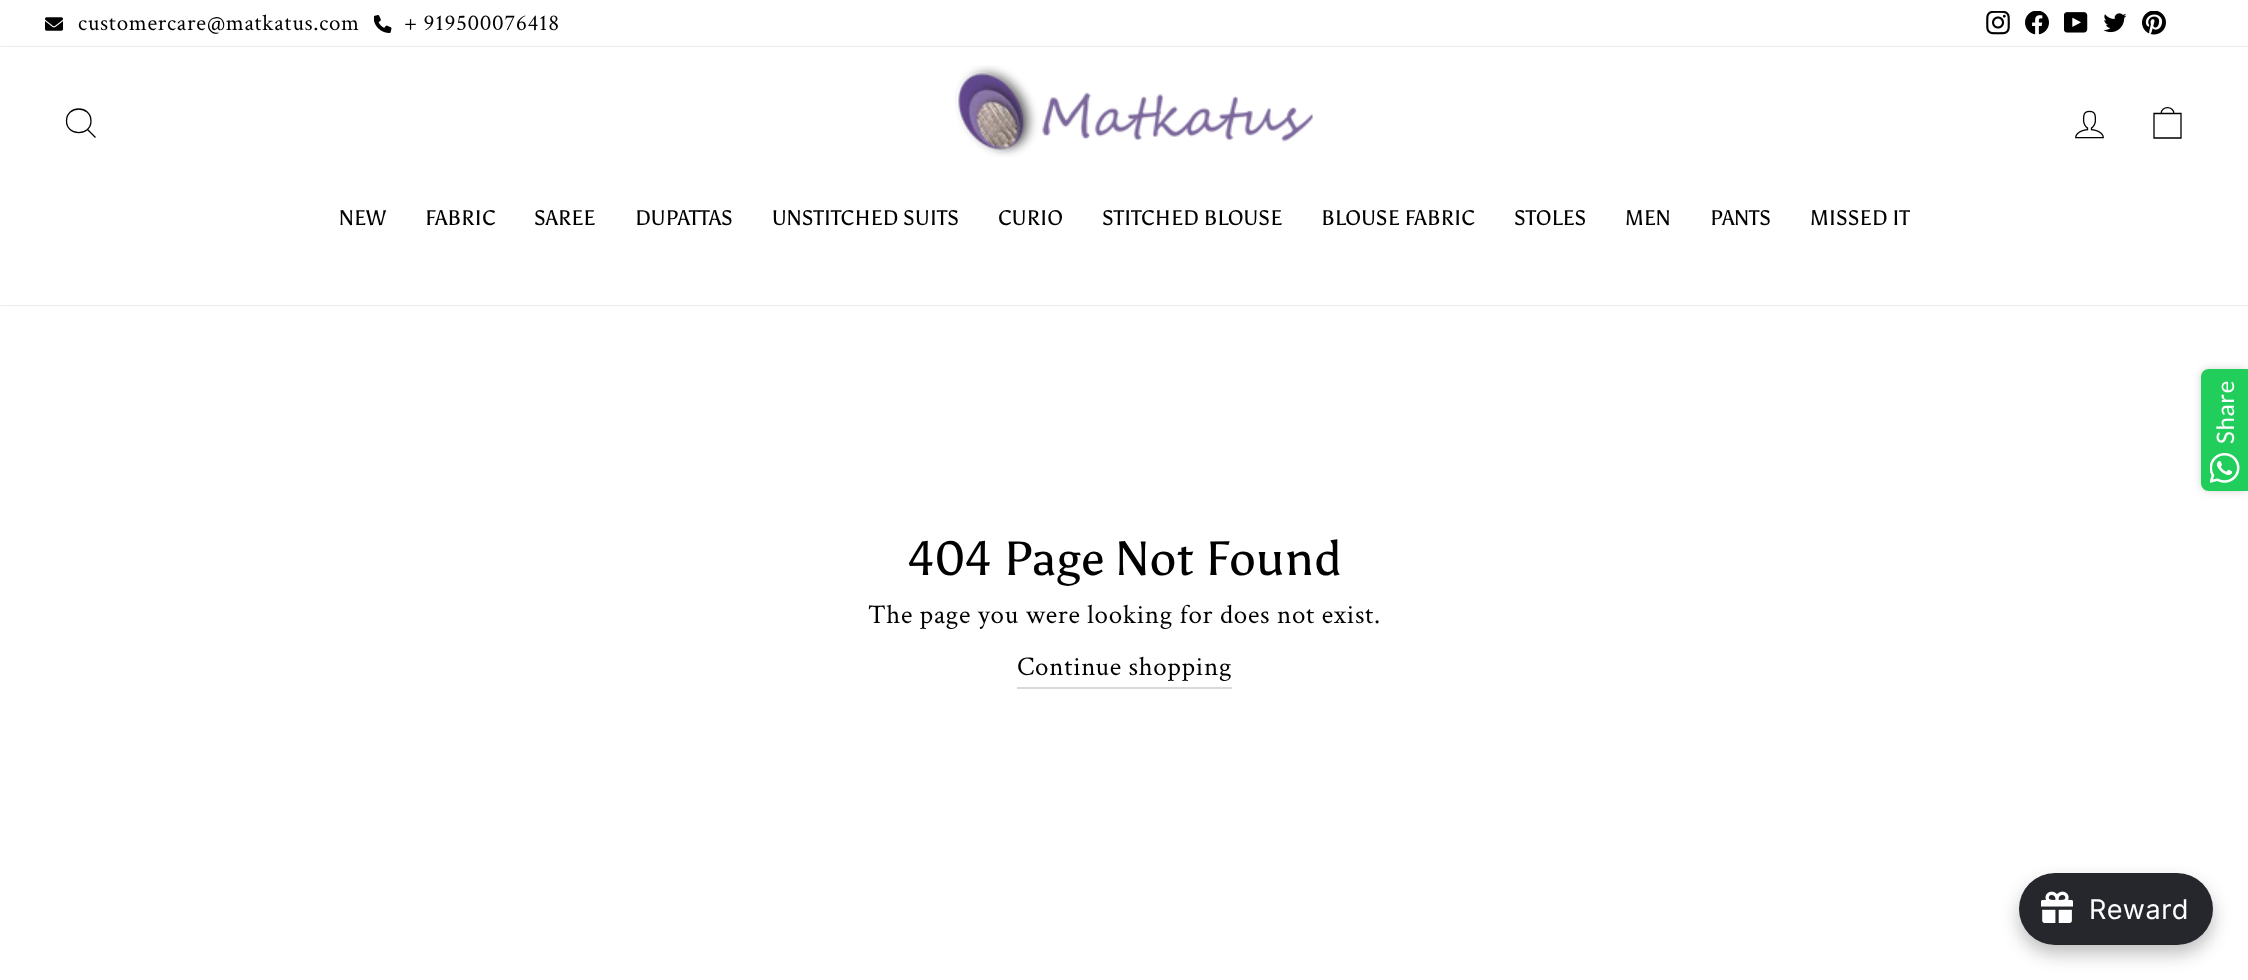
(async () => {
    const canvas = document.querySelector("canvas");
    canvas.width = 2248;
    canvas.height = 980;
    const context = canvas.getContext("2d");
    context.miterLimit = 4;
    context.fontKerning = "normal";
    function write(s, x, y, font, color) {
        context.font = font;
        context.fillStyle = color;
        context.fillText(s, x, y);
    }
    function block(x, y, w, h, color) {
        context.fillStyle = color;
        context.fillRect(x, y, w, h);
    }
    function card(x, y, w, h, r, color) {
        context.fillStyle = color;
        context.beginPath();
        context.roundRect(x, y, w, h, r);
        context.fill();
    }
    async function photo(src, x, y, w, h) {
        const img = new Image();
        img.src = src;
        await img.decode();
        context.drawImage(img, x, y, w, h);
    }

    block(0, 0, 2248, 980, "rgb(255, 255, 255)");
    await photo("media/1.png", 45, 17, 18, 14);
    context.letterSpacing = "0.7px";
    write("customercare@matkatus.com", 78, 30, "23px Crimson Text", "rgb(0, 0, 0)");
    await photo("media/2.png", 374, 15, 18, 18);
    write("+ 919500076418", 404, 30, "23px Crimson Text", "rgb(0, 0, 0)");
    await photo("media/3.png", 1986, 11, 24, 24);
    await photo("media/4.png", 2025, 11, 24, 24);
    await photo("media/5.png", 2064, 12, 24, 21);
    await photo("media/6.png", 2103, 13, 24, 20);
    await photo("media/7.png", 2142, 11, 24, 24);
    context.fillStyle = "rgba(0, 0, 0, 0.2)";
    context.filter = "blur(1px)";
    context.beginPath();
    context.rect(0, 47, 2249, 258);
    context.fill();
    context.filter = "none";
    block(0, 47, 2248, 258, "rgb(255, 255, 255)");
    context.beginPath();
    context.moveTo(91, 121);
    context.bezierCurveTo(91, 136.5, 66.5, 136.5, 66.5, 121);
    context.bezierCurveTo(66.5, 105, 91, 105, 91, 121);
    context.closePath();
    context.moveTo(95.5, 137.5);
    context.lineTo(87.5, 129.5);
    context.strokeStyle = "rgb(0, 0, 0)";
    context.lineWidth = 1.3;
    context.stroke();
    await photo("media/8.png", 955, 65, 358, 92);
    await photo("media/9.png", 2075, 110, 29, 29);
    context.beginPath();
    context.moveTo(2154, 113.5);
    context.lineTo(2181, 113.5);
    context.lineTo(2181, 138);
    context.lineTo(2154, 138);
    context.closePath();
    context.moveTo(2161, 114);
    context.bezierCurveTo(2161, 105.5, 2174, 105.5, 2174, 114);
    context.stroke();
    context.letterSpacing = "0px";
    write("NEW", 339, 225, "21px Asul", "rgb(0, 0, 0)");
    write("FABRIC", 425, 225, "21px Asul", "rgb(0, 0, 0)");
    write("SAREE", 534, 225, "21px Asul", "rgb(0, 0, 0)");
    write("DUPATTAS", 635, 225, "21px Asul", "rgb(0, 0, 0)");
    write("UNSTITCHED SUITS", 772, 225, "21px Asul", "rgb(0, 0, 0)");
    write("CURIO", 998, 225, "21px Asul", "rgb(0, 0, 0)");
    write("STITCHED BLOUSE", 1102, 225, "21px Asul", "rgb(0, 0, 0)");
    write("BLOUSE FABRIC", 1321, 225, "21px Asul", "rgb(0, 0, 0)");
    write("STOLES", 1514, 225, "21px Asul", "rgb(0, 0, 0)");
    write("MEN", 1625, 225, "21px Asul", "rgb(0, 0, 0)");
    write("PANTS", 1710, 225, "21px Asul", "rgb(0, 0, 0)");
    write("MISSED IT", 1810, 225, "21px Asul", "rgb(0, 0, 0)");
    write("404 Page Not Found", 908, 575, "48px Asul", "rgb(0, 0, 0)");
    context.letterSpacing = "0.7px";
    write("The page you were looking for does not exist.", 868, 623, "27px Crimson Text", "rgb(0, 0, 0)");
    block(1017, 687, 215, 2, "rgb(217, 217, 217)");
    write("Continue shopping", 1017, 675, "27px Crimson Text", "rgb(0, 0, 0)");
    context.fillStyle = "rgb(211, 211, 211)";
    context.filter = "blur(4px)";
    context.beginPath();
    context.roundRect(2201, 369, 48, 122, 8);
    context.fill();
    context.filter = "none";
    context.fillStyle = "rgb(34, 206, 91)";
    context.beginPath();
    context.moveTo(2209, 369);
    context.lineTo(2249, 369);
    context.lineTo(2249, 491);
    context.lineTo(2209, 491);
    context.bezierCurveTo(2204.5, 491, 2201, 487.5, 2201, 483);
    context.lineTo(2201, 377);
    context.bezierCurveTo(2201, 372.5, 2204.5, 369, 2209, 369);
    context.closePath();
    context.fill();
    context.font = "24px Lato";
    context.fillStyle = "rgb(255, 255, 255)";
    context.save();
    context.translate(2234, 444);
    context.rotate(-90 * Math.PI / 180);
    context.fillText("Share", 0, 0);
    context.restore();
    await photo("media/10.png", 2210, 453, 30, 30);
    context.fillStyle = "rgba(0, 0, 0, 0.25)";
    context.filter = "blur(9px)";
    context.beginPath();
    context.roundRect(2019, 882, 194, 72, 36);
    context.fill();
    context.filter = "none";
    card(2019, 873, 194, 72, 36, "rgb(37, 39, 44)");
    await photo("media/11.png", 2041, 891, 32, 32);
    write("Reward", 2089, 919, "27px Inter", "rgb(255, 255, 255)");
})();
